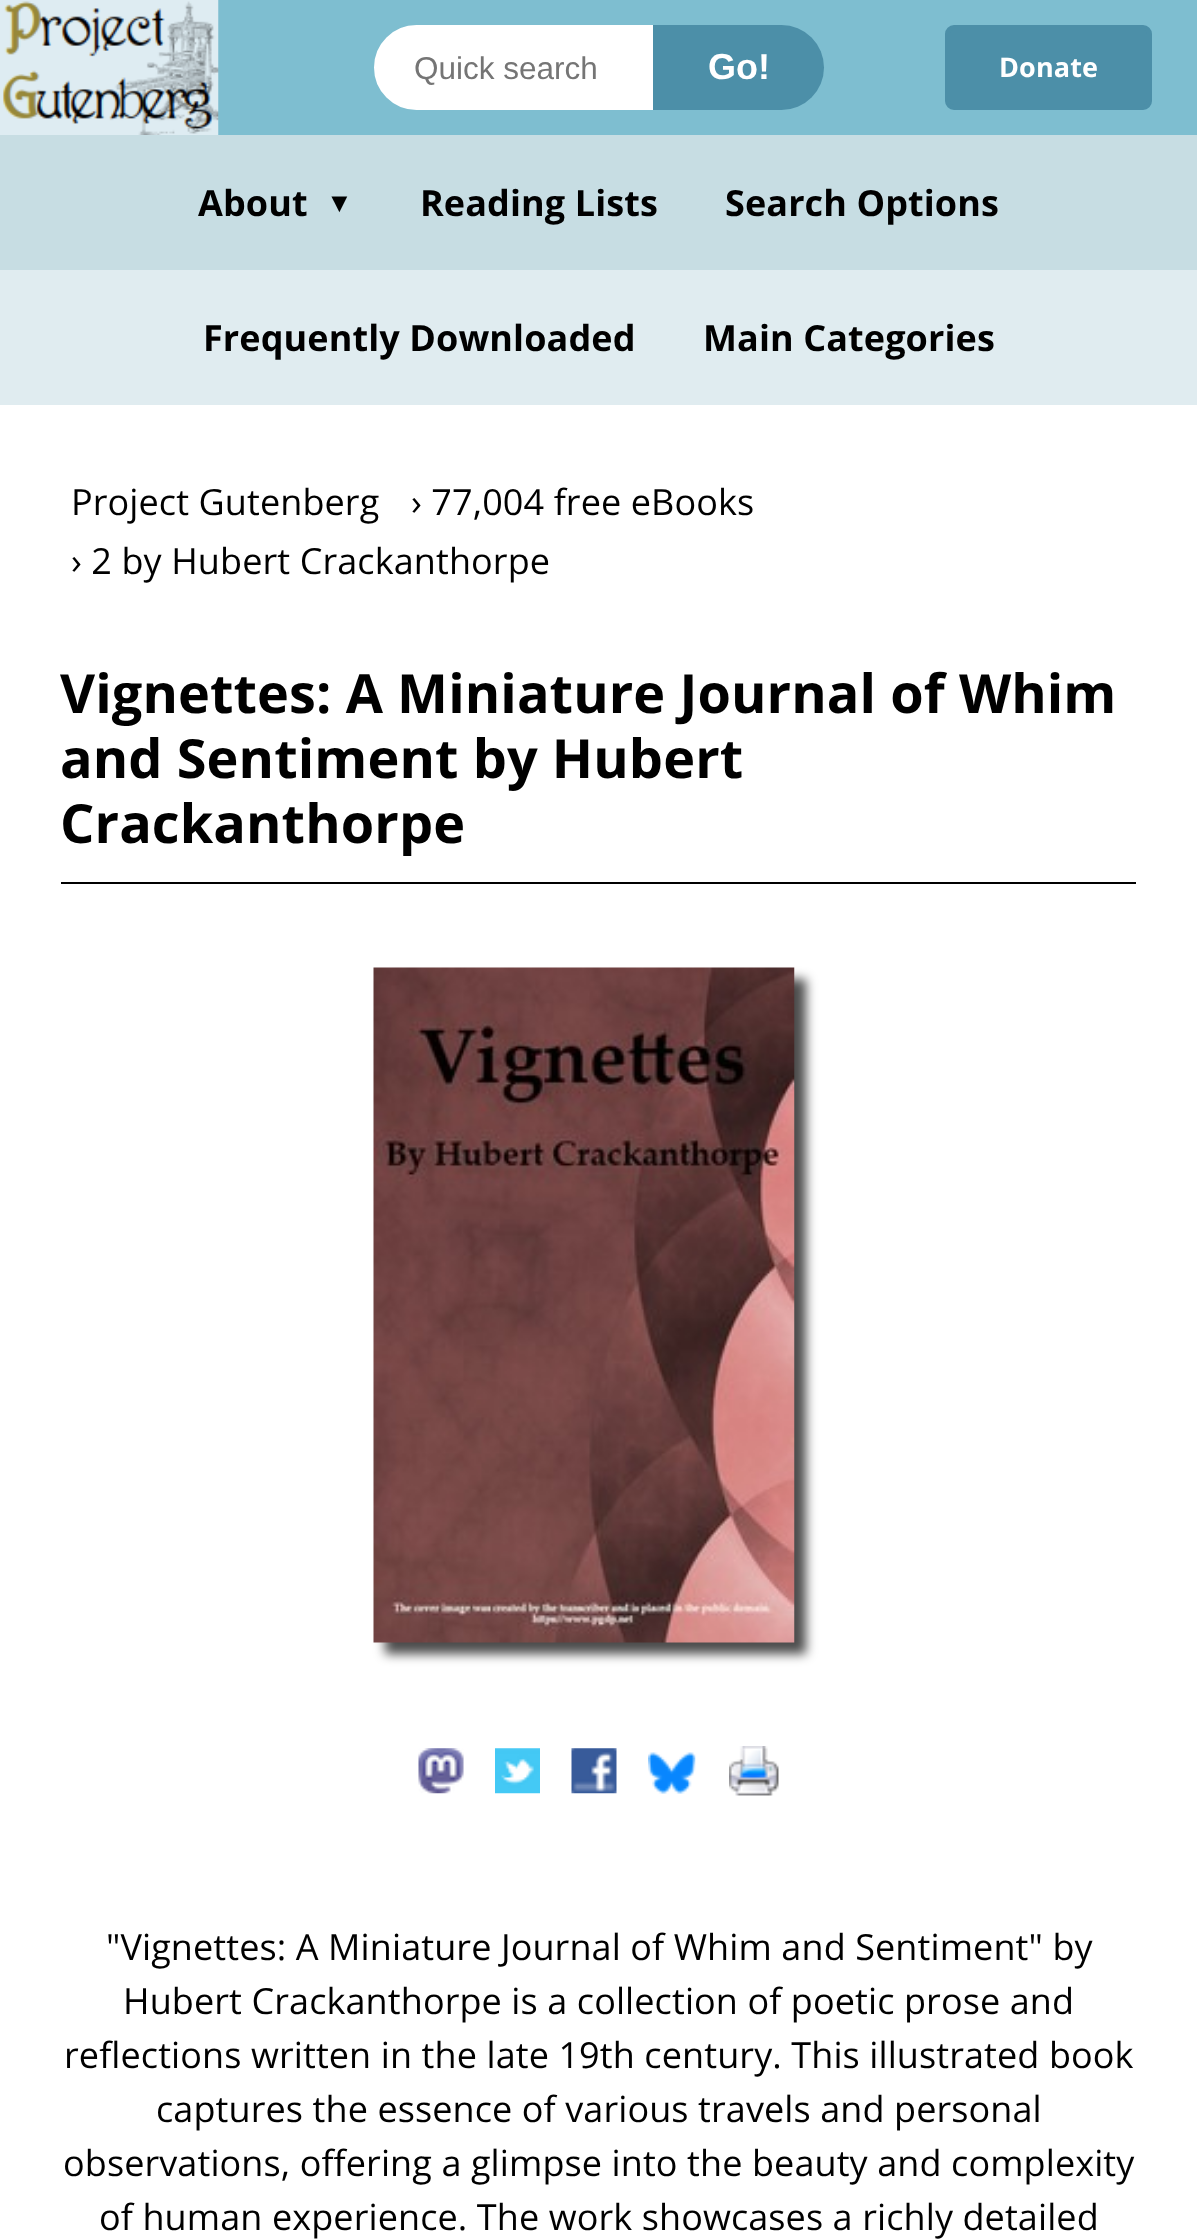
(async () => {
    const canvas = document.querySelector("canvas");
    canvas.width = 1197;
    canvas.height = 2239;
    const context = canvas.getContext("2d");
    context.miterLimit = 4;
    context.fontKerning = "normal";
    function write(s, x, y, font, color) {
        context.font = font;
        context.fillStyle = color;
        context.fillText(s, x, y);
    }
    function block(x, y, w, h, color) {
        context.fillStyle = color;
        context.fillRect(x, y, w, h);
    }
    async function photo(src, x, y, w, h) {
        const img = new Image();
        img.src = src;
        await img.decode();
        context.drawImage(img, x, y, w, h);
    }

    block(0, 0, 1197, 2239, "rgb(255, 255, 255)");
    block(218, 0, 979, 135, "rgb(126, 190, 208)");
    await photo("media/1.png", 0, 0, 219, 135);
    context.fillStyle = "rgb(255, 255, 255)";
    context.beginPath();
    context.roundRect(376.5, 27.5, 274, 80, [40, 0, 0, 40]);
    context.fill();
    context.strokeStyle = "rgb(255, 255, 255)";
    context.lineWidth = 5;
    context.stroke();
    write("Quick search", 414, 79, "31.5px Liberation Sans", "rgb(117, 117, 117)");
    context.fillStyle = "rgb(76, 143, 168)";
    context.beginPath();
    context.roundRect(653, 25, 171, 85, [0, 42.5, 42.5, 0]);
    context.fill();
    write("Go!", 708, 79, "bold 36px Liberation Sans", "rgb(255, 255, 255)");
    context.fillStyle = "rgb(76, 143, 168)";
    context.beginPath();
    context.roundRect(947.5, 27.5, 202, 80, 6.5);
    context.fill();
    context.strokeStyle = "rgb(76, 143, 168)";
    context.stroke();
    context.letterSpacing = "0.1px";
    write("Donate", 999, 77, "bold 27px Open Sans", "rgb(255, 255, 255)");
    block(0, 135, 1197, 135, "rgb(199, 221, 227)");
    write("About", 198, 216, "bold 36px Open Sans", "rgb(0, 0, 0)");
    write("▼", 326, 212, "bold 27px Liberation Sans", "rgb(0, 0, 0)");
    write("Reading Lists", 420, 216, "bold 36px Open Sans", "rgb(0, 0, 0)");
    write("Search Options", 725, 216, "bold 36px Open Sans", "rgb(0, 0, 0)");
    block(0, 270, 1197, 135, "rgb(224, 236, 240)");
    write("Frequently Downloaded", 203, 351, "bold 36px Open Sans", "rgb(0, 0, 0)");
    write("Main Categories", 703, 351, "bold 36px Open Sans", "rgb(0, 0, 0)");
    write("Project Gutenberg", 71, 515, "36px Open Sans", "rgb(0, 0, 0)");
    write("› 77,004 free eBooks", 411, 515, "36px Open Sans", "rgb(0, 0, 0)");
    write("› 2 by Hubert Crackanthorpe", 71, 574, "36px Open Sans", "rgb(0, 0, 0)");
    block(61, 882, 1075, 2, "rgb(0, 0, 0)");
    write("Vignettes: A Miniature Journal of Whim", 60, 713, "bold 54px Open Sans", "rgb(0, 0, 0)");
    write("and Sentiment by Hubert", 60, 778, "bold 54px Open Sans", "rgb(0, 0, 0)");
    write("Crackanthorpe", 60, 843, "bold 54px Open Sans", "rgb(0, 0, 0)");
    context.fillStyle = "rgba(0, 0, 0, 0.7)";
    context.filter = "blur(5.5px)";
    context.beginPath();
    context.rect(385, 979, 421, 675);
    context.fill();
    context.filter = "none";
    await photo("media/2.png", 373, 967, 422, 676);
    await photo("media/3.png", 418, 1748, 46, 46);
    await photo("media/4.png", 495, 1748, 45, 46);
    await photo("media/5.png", 571, 1748, 46, 46);
    await photo("media/6.png", 648, 1752, 48, 42);
    await photo("media/7.png", 729, 1746, 50, 50);
    write("\"Vignettes: A Miniature Journal of Whim and Sentiment\" by", 106, 1960, "36px Open Sans", "rgb(0, 0, 0)");
    write("Hubert Crackanthorpe is a collection of poetic prose and", 123, 2014, "36px Open Sans", "rgb(0, 0, 0)");
    write("reflections written in the late 19th century. This illustrated book", 64, 2068, "36px Open Sans", "rgb(0, 0, 0)");
    write("captures the essence of various travels and personal", 156, 2122, "36px Open Sans", "rgb(0, 0, 0)");
    write("observations, offering a glimpse into the beauty and complexity", 63, 2176, "36px Open Sans", "rgb(0, 0, 0)");
    write("of human experience. The work showcases a richly detailed", 99, 2230, "36px Open Sans", "rgb(0, 0, 0)");
})();
